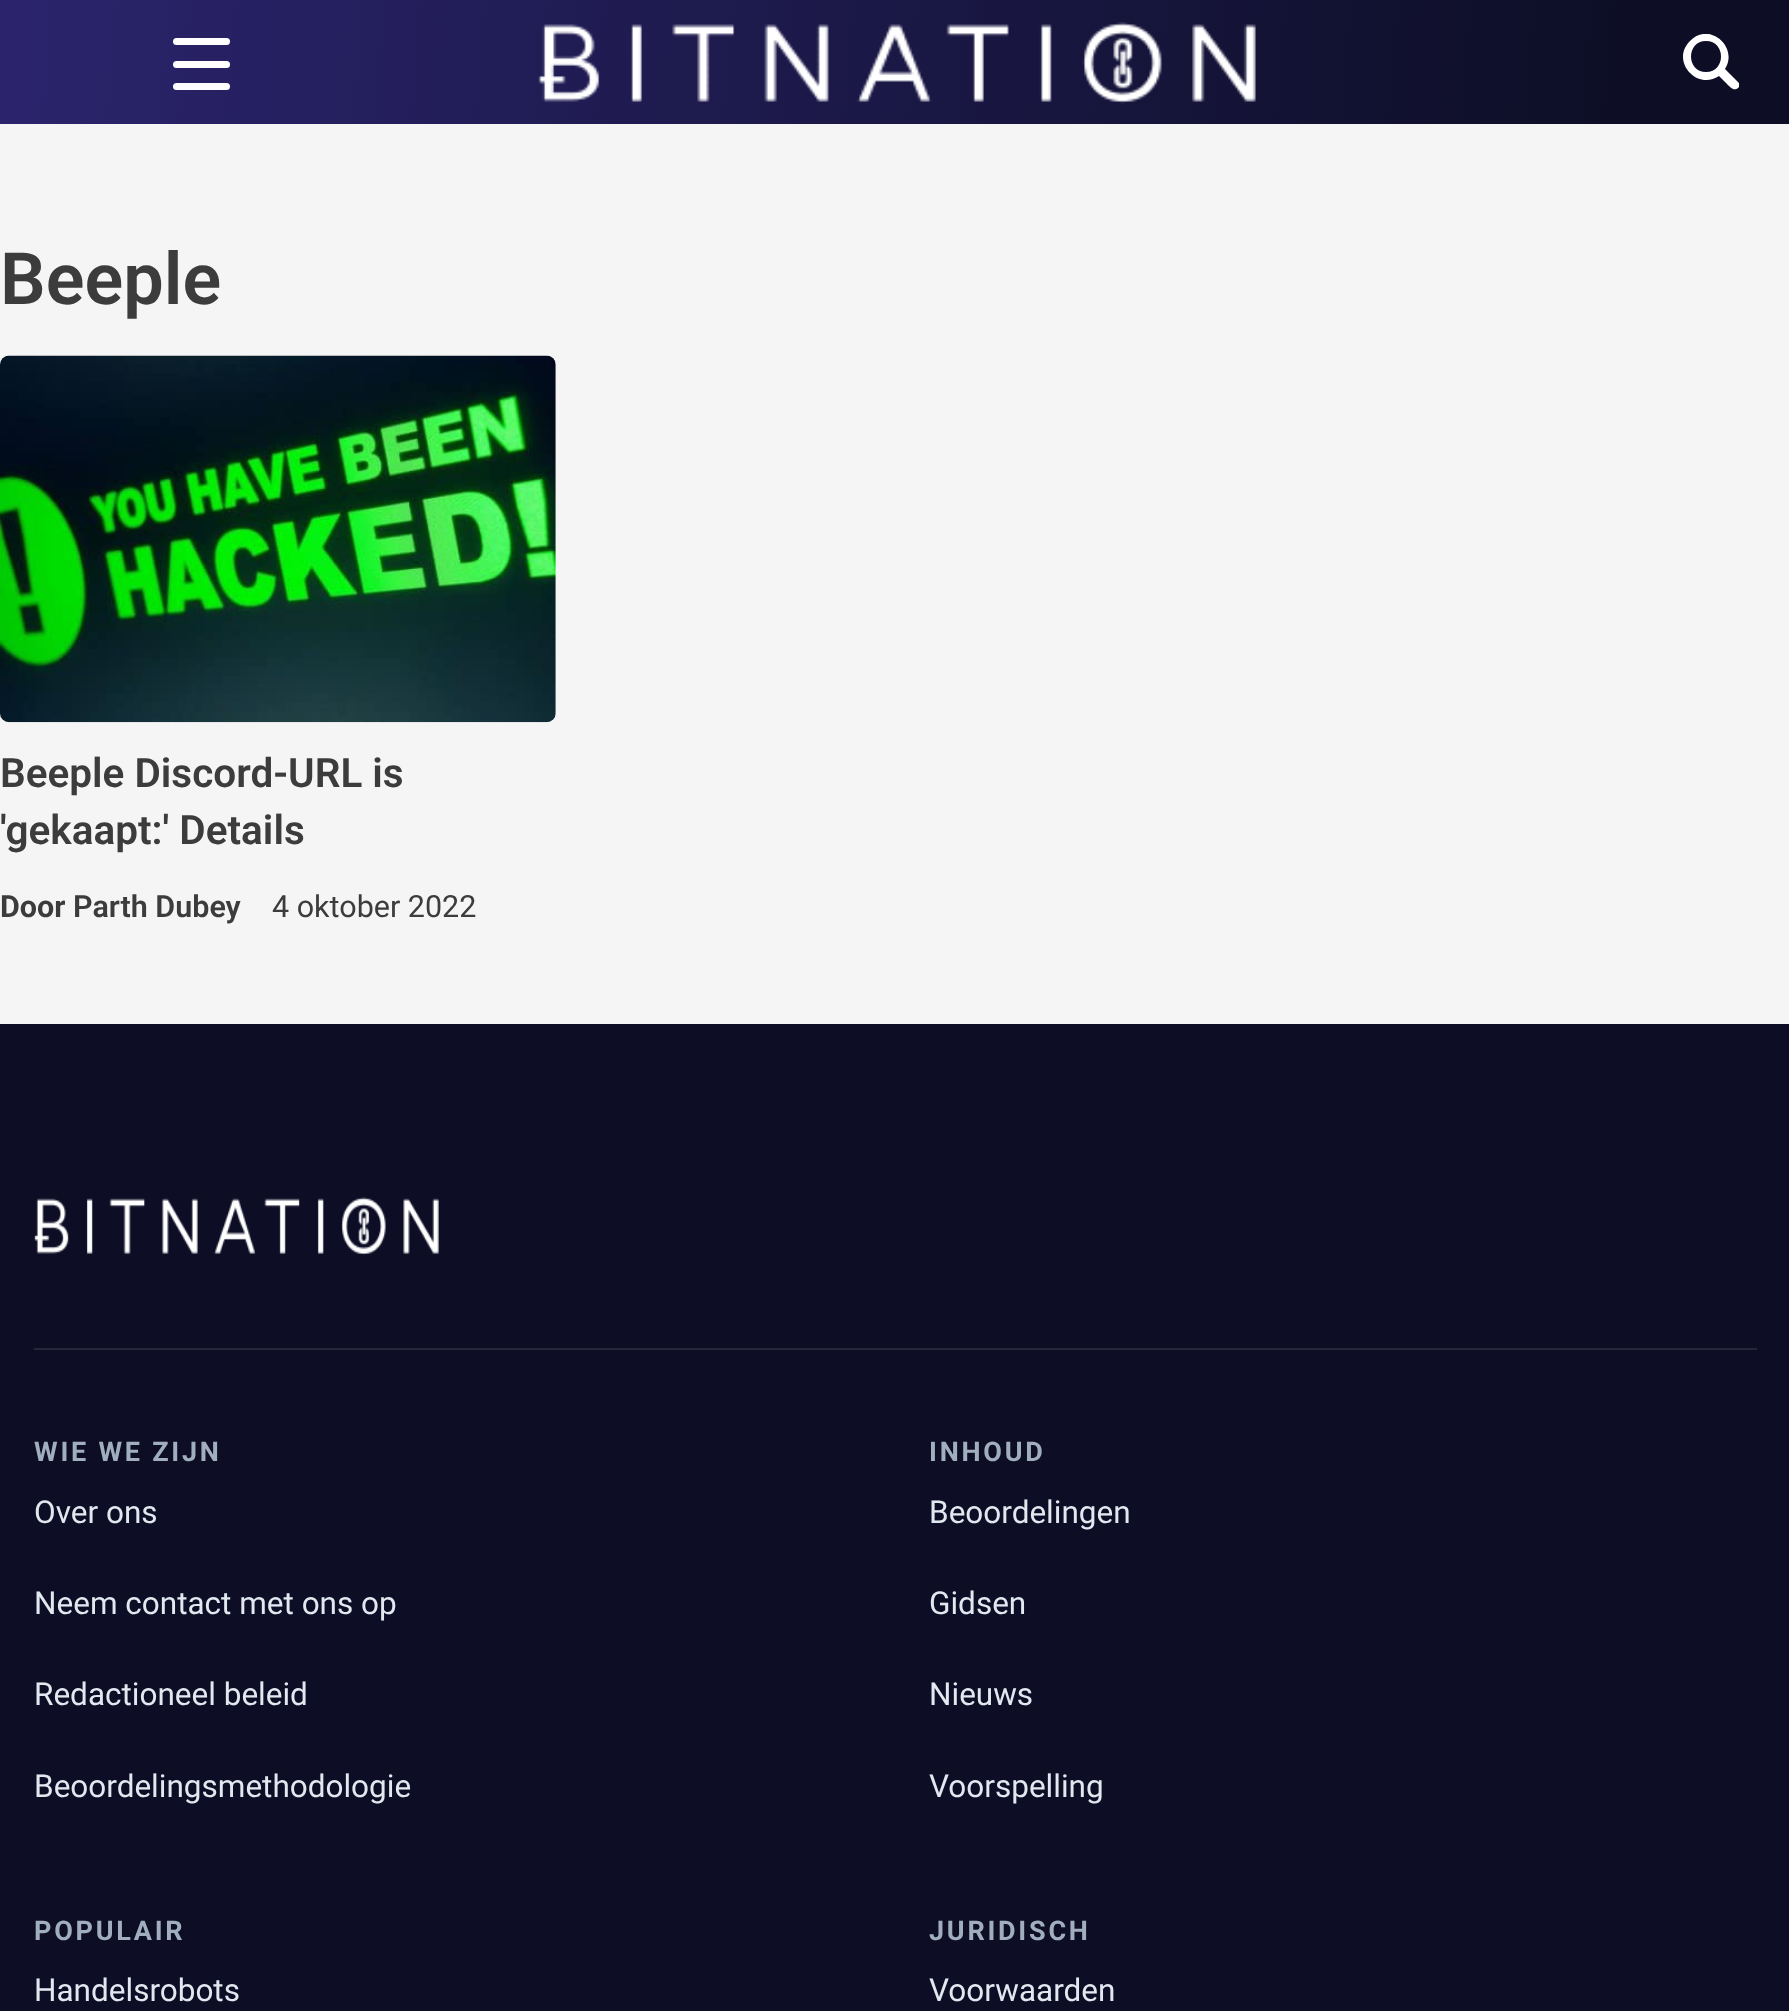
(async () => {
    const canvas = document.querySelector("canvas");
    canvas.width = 1789;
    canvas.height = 2011;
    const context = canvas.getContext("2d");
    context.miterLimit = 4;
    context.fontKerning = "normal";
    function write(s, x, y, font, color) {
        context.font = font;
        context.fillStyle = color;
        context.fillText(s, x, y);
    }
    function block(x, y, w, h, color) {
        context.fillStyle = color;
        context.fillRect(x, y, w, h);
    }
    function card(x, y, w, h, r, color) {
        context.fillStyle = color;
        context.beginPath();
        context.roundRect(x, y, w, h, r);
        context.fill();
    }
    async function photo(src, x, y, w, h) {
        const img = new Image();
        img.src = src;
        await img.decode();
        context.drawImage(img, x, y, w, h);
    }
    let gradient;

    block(0, 0, 1789, 2011, "rgb(245, 245, 245)");
    gradient = context.createLinearGradient(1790, 140, 1.4, -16);
    gradient.addColorStop(0.1, "rgb(13, 14, 38)");
    gradient.addColorStop(1, "rgb(43, 36, 109)");
    context.fillStyle = gradient;
    context.fillRect(0, 0, 1789, 124);
    card(173, 61, 57, 7, 3.5, "rgb(255, 255, 255)");
    card(173, 38, 57, 7, 3.5, "rgb(255, 255, 255)");
    card(173, 83, 57, 7, 3.5, "rgb(255, 255, 255)");
    await photo("media/1.png", 538, 22, 718, 82);
    context.save();
    context.beginPath();
    context.rect(1683, 34, 56, 56);
    context.clip();
    context.beginPath();
    context.moveTo(1738, 82);
    context.lineTo(1725, 69);
    context.bezierCurveTo(1739, 47, 1709, 21, 1690, 41);
    context.bezierCurveTo(1670, 61, 1697, 91, 1719, 76);
    context.lineTo(1727, 84);
    context.bezierCurveTo(1729, 86, 1734, 92, 1738, 88);
    context.bezierCurveTo(1740, 86, 1740, 84, 1738, 82);
    context.closePath();
    context.moveTo(1706, 72);
    context.bezierCurveTo(1686, 72, 1686, 41, 1706, 41);
    context.bezierCurveTo(1726, 41, 1726, 72, 1706, 72);
    context.closePath();
    context.fill();
    context.restore();
    write("Beeple", 0, 304, "600 72px Roboto", "rgb(60, 60, 60)");
    await photo("media/2.png", 0, 355, 556, 368);
    write("Beeple Discord-URL is", 0, 787, "600 40.5px Roboto", "rgb(60, 60, 60)");
    write("'gekaapt:' Details", 0, 844, "600 40.5px Roboto", "rgb(60, 60, 60)");
    write("Door", 0, 917, "bold 30.5px Roboto", "rgb(60, 60, 60)");
    write("Parth Dubey", 73, 917, "600 30.5px Roboto", "rgb(60, 60, 60)");
    write("4 oktober 2022", 272, 917, "30.5px Roboto", "rgb(60, 60, 60)");
    block(0, 1024, 1789, 987, "rgb(13, 14, 38)");
    block(34, 1348, 1723, 2, "rgb(37, 38, 60)");
    await photo("media/3.png", 34, 1197, 405, 58);
    context.letterSpacing = "2.75px";
    write("WIE WE ZIJN", 34, 1461, "bold 27px Roboto", "rgb(160, 174, 192)");
    context.letterSpacing = "0px";
    write("Over ons", 34, 1523, "31.5px Roboto", "rgb(226, 232, 240)");
    write("Neem contact met ons op", 34, 1614, "31.5px Roboto", "rgb(226, 232, 240)");
    write("Redactioneel beleid", 34, 1705, "31.5px Roboto", "rgb(226, 232, 240)");
    write("Beoordelingsmethodologie", 34, 1797, "31.5px Roboto", "rgb(226, 232, 240)");
    context.letterSpacing = "2.75px";
    write("INHOUD", 929, 1461, "bold 27px Roboto", "rgb(160, 174, 192)");
    context.letterSpacing = "0px";
    write("Beoordelingen", 929, 1523, "31.5px Roboto", "rgb(226, 232, 240)");
    write("Gidsen", 929, 1614, "31.5px Roboto", "rgb(226, 232, 240)");
    write("Nieuws", 929, 1705, "31.5px Roboto", "rgb(226, 232, 240)");
    write("Voorspelling", 929, 1797, "31.5px Roboto", "rgb(226, 232, 240)");
    context.letterSpacing = "2.75px";
    write("POPULAIR", 34, 1940, "bold 27px Roboto", "rgb(160, 174, 192)");
    context.letterSpacing = "0px";
    write("Handelsrobots", 34, 2001, "31.5px Roboto", "rgb(226, 232, 240)");
    context.letterSpacing = "2.75px";
    write("JURIDISCH", 929, 1940, "bold 27px Roboto", "rgb(160, 174, 192)");
    context.letterSpacing = "0px";
    write("Voorwaarden", 929, 2001, "31.5px Roboto", "rgb(226, 232, 240)");
})();
